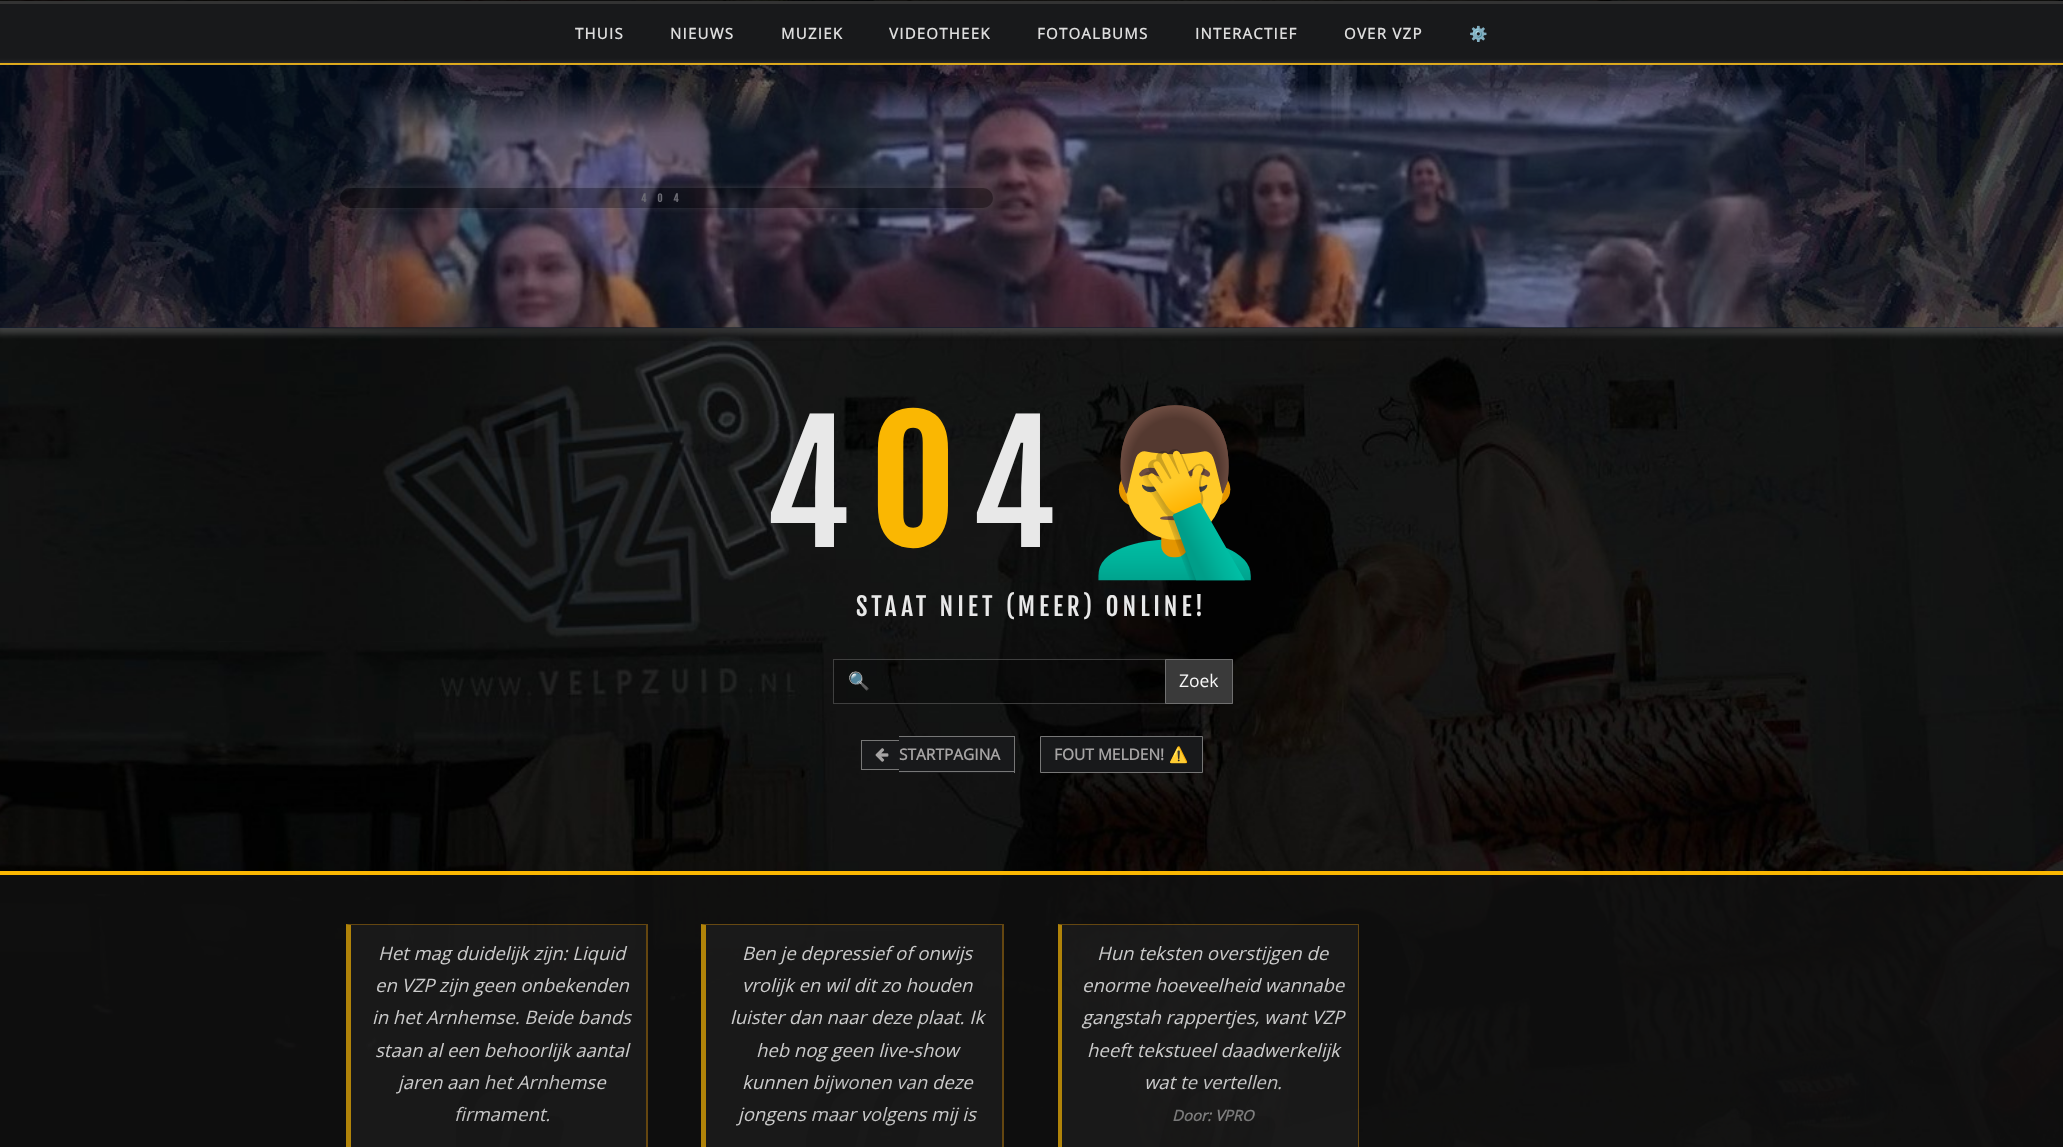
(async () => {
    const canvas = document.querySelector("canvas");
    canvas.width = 2063;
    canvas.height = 1147;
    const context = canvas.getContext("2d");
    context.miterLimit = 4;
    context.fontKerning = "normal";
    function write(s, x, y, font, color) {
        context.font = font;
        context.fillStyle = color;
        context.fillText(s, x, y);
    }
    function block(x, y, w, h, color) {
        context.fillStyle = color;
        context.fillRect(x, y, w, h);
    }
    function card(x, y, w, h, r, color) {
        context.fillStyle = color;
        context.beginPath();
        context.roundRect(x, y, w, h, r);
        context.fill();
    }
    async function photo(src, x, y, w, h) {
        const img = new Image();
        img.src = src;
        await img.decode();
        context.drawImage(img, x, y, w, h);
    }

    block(0, 0, 2063, 1147, "rgb(255, 255, 255)");
    await photo("media/1.png", 0, 0, 2063, 1147);
    block(0, 4, 2063, 59, "rgb(24, 25, 27)");
    block(0, 1, 2063, 3, "rgb(51, 51, 51)");
    block(0, 63, 2063, 2, "rgb(250, 183, 2)");
    context.letterSpacing = "1.25px";
    write("THUIS", 575, 39, "bold 15px Open Sans", "rgb(221, 221, 221)");
    write("NIEUWS", 670, 39, "bold 15px Open Sans", "rgb(221, 221, 221)");
    write("MUZIEK", 781, 39, "bold 15px Open Sans", "rgb(221, 221, 221)");
    write("VIDEOTHEEK", 889, 39, "bold 15px Open Sans", "rgb(221, 221, 221)");
    write("FOTOALBUMS", 1037, 39, "bold 15px Open Sans", "rgb(221, 221, 221)");
    write("INTERACTIEF", 1195, 39, "bold 15px Open Sans", "rgb(221, 221, 221)");
    write("OVER VZP", 1344, 39, "bold 15px Open Sans", "rgb(221, 221, 221)");
    write("⚙️", 1469, 39, "bold 15px Noto Color Emoji", "rgb(221, 221, 221)");
    block(0, 327, 2063, 1, "rgb(23, 33, 44)");
    await photo("media/2.png", 0, 65, 2063, 263);
    context.save();
    context.beginPath();
    context.moveTo(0, 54);
    context.lineTo(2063, 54);
    context.lineTo(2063, 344);
    context.lineTo(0, 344);
    context.closePath();
    context.moveTo(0, 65);
    context.lineTo(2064, 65);
    context.lineTo(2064, 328);
    context.lineTo(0, 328);
    context.closePath();
    context.clip("evenodd");
    context.fillStyle = "rgba(124, 124, 124, 0.45)";
    context.filter = "blur(3px)";
    context.beginPath();
    context.rect(-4, 64, 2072, 270);
    context.fill();
    context.filter = "none";
    context.restore();
    block(0, 65, 2063, 263, "rgba(6, 30, 70, 0.36)");
    context.save();
    context.beginPath();
    context.moveTo(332, 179);
    context.lineTo(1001, 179);
    context.lineTo(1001, 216);
    context.lineTo(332, 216);
    context.closePath();
    context.moveTo(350, 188);
    context.lineTo(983, 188);
    context.bezierCurveTo(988.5, 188, 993, 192.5, 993, 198);
    context.bezierCurveTo(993, 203.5, 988.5, 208, 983, 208);
    context.lineTo(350, 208);
    context.bezierCurveTo(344.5, 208, 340, 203.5, 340, 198);
    context.bezierCurveTo(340, 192.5, 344.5, 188, 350, 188);
    context.closePath();
    context.clip("evenodd");
    context.fillStyle = "rgba(96, 96, 96, 0.24)";
    context.filter = "blur(2px)";
    context.beginPath();
    context.roundRect(339, 186, 655, 23, 11.5);
    context.fill();
    context.filter = "none";
    context.restore();
    card(340, 188, 653, 20, 10, "rgba(0, 0, 0, 0.3)");
    context.letterSpacing = "11px";
    write("404", 641, 202, "bold 10px Fjalla One", "rgb(108, 108, 117)");
    await photo("media/3.png", 156, 327, 1758, 14);
    context.letterSpacing = "19px";
    write("4", 765, 547, "160px Fjalla One", "rgb(232, 232, 232)");
    write("0", 869, 547, "bold 160px Fjalla One", "rgb(250, 183, 2)");
    write("4", 971, 547, "160px Fjalla One", "rgb(232, 232, 232)");
    write("🤦‍♂️", 1075, 547, "160px Noto Color Emoji", "rgb(232, 232, 232)");
    context.letterSpacing = "4px";
    write("STAAT NIET (MEER) ONLINE!", 856, 616, "25px Fjalla One", "rgb(232, 232, 232)");
    block(833, 659, 332, 45, "rgba(0, 0, 0, 0.2)");
    context.strokeStyle = "rgba(89, 89, 89, 0.67)";
    context.strokeRect(833.5, 659.5, 399, 44);
    context.save();
    context.beginPath();
    context.rect(849, 671, 367, 20);
    context.clip();
    context.letterSpacing = "0px";
    write("🔍", 848, 687, "17.5px Noto Color Emoji", "rgb(221, 221, 221)");
    context.restore();
    context.fillStyle = "rgb(58, 58, 58)";
    context.beginPath();
    context.rect(1165.5, 659.5, 67, 44);
    context.fill();
    context.strokeStyle = "rgb(112, 112, 112)";
    context.stroke();
    context.letterSpacing = "0px";
    write("Zoek", 1179, 687, "17.5px Open Sans", "rgb(249, 249, 249)");
    block(862, 741, 37, 28, "rgb(24, 25, 27)");
    block(861, 740, 38, 1, "rgb(119, 119, 119)");
    block(861, 769, 38, 1, "rgb(119, 119, 119)");
    block(861, 740, 1, 30, "rgb(119, 119, 119)");
    block(899, 737, 115, 36, "rgb(24, 25, 27)");
    block(899, 736, 116, 1, "rgb(119, 119, 119)");
    block(1014, 736, 1, 37, "rgb(119, 119, 119)");
    block(899, 771, 116, 1, "rgb(119, 119, 119)");
    await photo("media/4.png", 875, 748, 14, 14);
    write("STARTPAGINA", 899, 760, "bold 15.5px Open Sans", "rgb(166, 164, 164)");
    context.fillStyle = "rgb(24, 25, 27)";
    context.beginPath();
    context.rect(1040.5, 736.5, 162, 36);
    context.fill();
    context.strokeStyle = "rgb(119, 119, 119)";
    context.stroke();
    write("FOUT MELDEN!", 1054, 760, "bold 15.5px Open Sans", "rgb(166, 164, 164)");
    write("⚠️", 1169, 760, "bold 15.5px Noto Color Emoji", "rgb(166, 164, 164)");
    block(0, 875, 2063, 272, "rgba(17, 17, 17, 0.85)");
    block(0, 871, 2063, 4, "rgb(250, 183, 2)");
    block(346, 924, 302, 223, "rgba(68, 68, 68, 0.2)");
    context.fillStyle = "rgba(255, 165, 0, 0.33)";
    context.beginPath();
    context.moveTo(346, 924);
    context.lineTo(648, 924);
    context.lineTo(646, 925);
    context.lineTo(351, 925);
    context.closePath();
    context.fill();
    context.beginPath();
    context.moveTo(648, 924);
    context.lineTo(648, 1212);
    context.lineTo(646, 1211);
    context.lineTo(646, 925);
    context.closePath();
    context.fill();
    context.fillStyle = "rgba(250, 183, 2, 0.67)";
    context.beginPath();
    context.moveTo(346, 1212);
    context.lineTo(346, 924);
    context.lineTo(351, 925);
    context.lineTo(351, 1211);
    context.closePath();
    context.fill();
    write("Het mag duidelijk zijn: Liquid", 378, 960, "italic 18.5px Open Sans", "rgb(203, 203, 203)");
    write("en VZP zijn geen onbekenden", 375, 992, "italic 18.5px Open Sans", "rgb(203, 203, 203)");
    write("in het Arnhemse. Beide bands", 372, 1024, "italic 18.5px Open Sans", "rgb(203, 203, 203)");
    write("staan al een behoorlijk aantal", 375, 1057, "italic 18.5px Open Sans", "rgb(203, 203, 203)");
    write("jaren aan het Arnhemse", 398, 1089, "italic 18.5px Open Sans", "rgb(203, 203, 203)");
    write("firmament.", 454, 1121, "italic 18.5px Open Sans", "rgb(203, 203, 203)");
    await photo("media/5.png", 456, 1075, 111, 72);
    block(701, 924, 303, 223, "rgba(68, 68, 68, 0.2)");
    context.fillStyle = "rgb(103, 73, 18)";
    context.beginPath();
    context.moveTo(701, 924);
    context.lineTo(1004, 924);
    context.lineTo(1002, 925);
    context.lineTo(706, 925);
    context.closePath();
    context.fill();
    context.fillStyle = "rgba(255, 165, 0, 0.33)";
    context.beginPath();
    context.moveTo(1004, 924);
    context.lineTo(1004, 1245);
    context.lineTo(1002, 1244);
    context.lineTo(1002, 925);
    context.closePath();
    context.fill();
    context.fillStyle = "rgba(250, 183, 2, 0.67)";
    context.beginPath();
    context.moveTo(701, 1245);
    context.lineTo(701, 924);
    context.lineTo(706, 925);
    context.lineTo(706, 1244);
    context.closePath();
    context.fill();
    write("Ben je depressief of onwijs", 742, 960, "italic 18.5px Open Sans", "rgb(203, 203, 203)");
    write("vrolijk en wil dit zo houden", 742, 992, "italic 18.5px Open Sans", "rgb(203, 203, 203)");
    write("luister dan naar deze plaat. Ik", 730, 1024, "italic 18.5px Open Sans", "rgb(203, 203, 203)");
    write("heb nog geen live-show", 756, 1057, "italic 18.5px Open Sans", "rgb(203, 203, 203)");
    write("kunnen bijwonen van deze", 742, 1089, "italic 18.5px Open Sans", "rgb(203, 203, 203)");
    write("jongens maar volgens mij is", 738, 1121, "italic 18.5px Open Sans", "rgb(203, 203, 203)");
    await photo("media/6.png", 806, 1079, 118, 68);
    block(1058, 924, 301, 223, "rgba(68, 68, 68, 0.2)");
    context.fillStyle = "rgba(255, 165, 0, 0.33)";
    context.beginPath();
    context.moveTo(1058, 924);
    context.lineTo(1359, 924);
    context.lineTo(1358, 925);
    context.lineTo(1062, 925);
    context.closePath();
    context.fill();
    context.beginPath();
    context.moveTo(1359, 924);
    context.lineTo(1359, 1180);
    context.lineTo(1358, 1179);
    context.lineTo(1358, 925);
    context.closePath();
    context.fill();
    context.fillStyle = "rgba(250, 183, 2, 0.67)";
    context.beginPath();
    context.moveTo(1058, 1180);
    context.lineTo(1058, 924);
    context.lineTo(1062, 925);
    context.lineTo(1062, 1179);
    context.closePath();
    context.fill();
    write("Hun teksten overstijgen de", 1097, 960, "italic 18.5px Open Sans", "rgb(203, 203, 203)");
    write("enorme hoeveelheid wannabe", 1082, 992, "italic 18.5px Open Sans", "rgb(203, 203, 203)");
    write("gangstah rappertjes, want VZP", 1082, 1024, "italic 18.5px Open Sans", "rgb(203, 203, 203)");
    write("heeft tekstueel daadwerkelijk", 1087, 1057, "italic 18.5px Open Sans", "rgb(203, 203, 203)");
    write("wat te vertellen.", 1144, 1089, "italic 18.5px Open Sans", "rgb(203, 203, 203)");
    write("Door: VPRO", 1172, 1121, "italic bold 15px Open Sans", "rgb(128, 128, 128)");
    await photo("media/7.png", 1159, 1076, 119, 71);
})();
